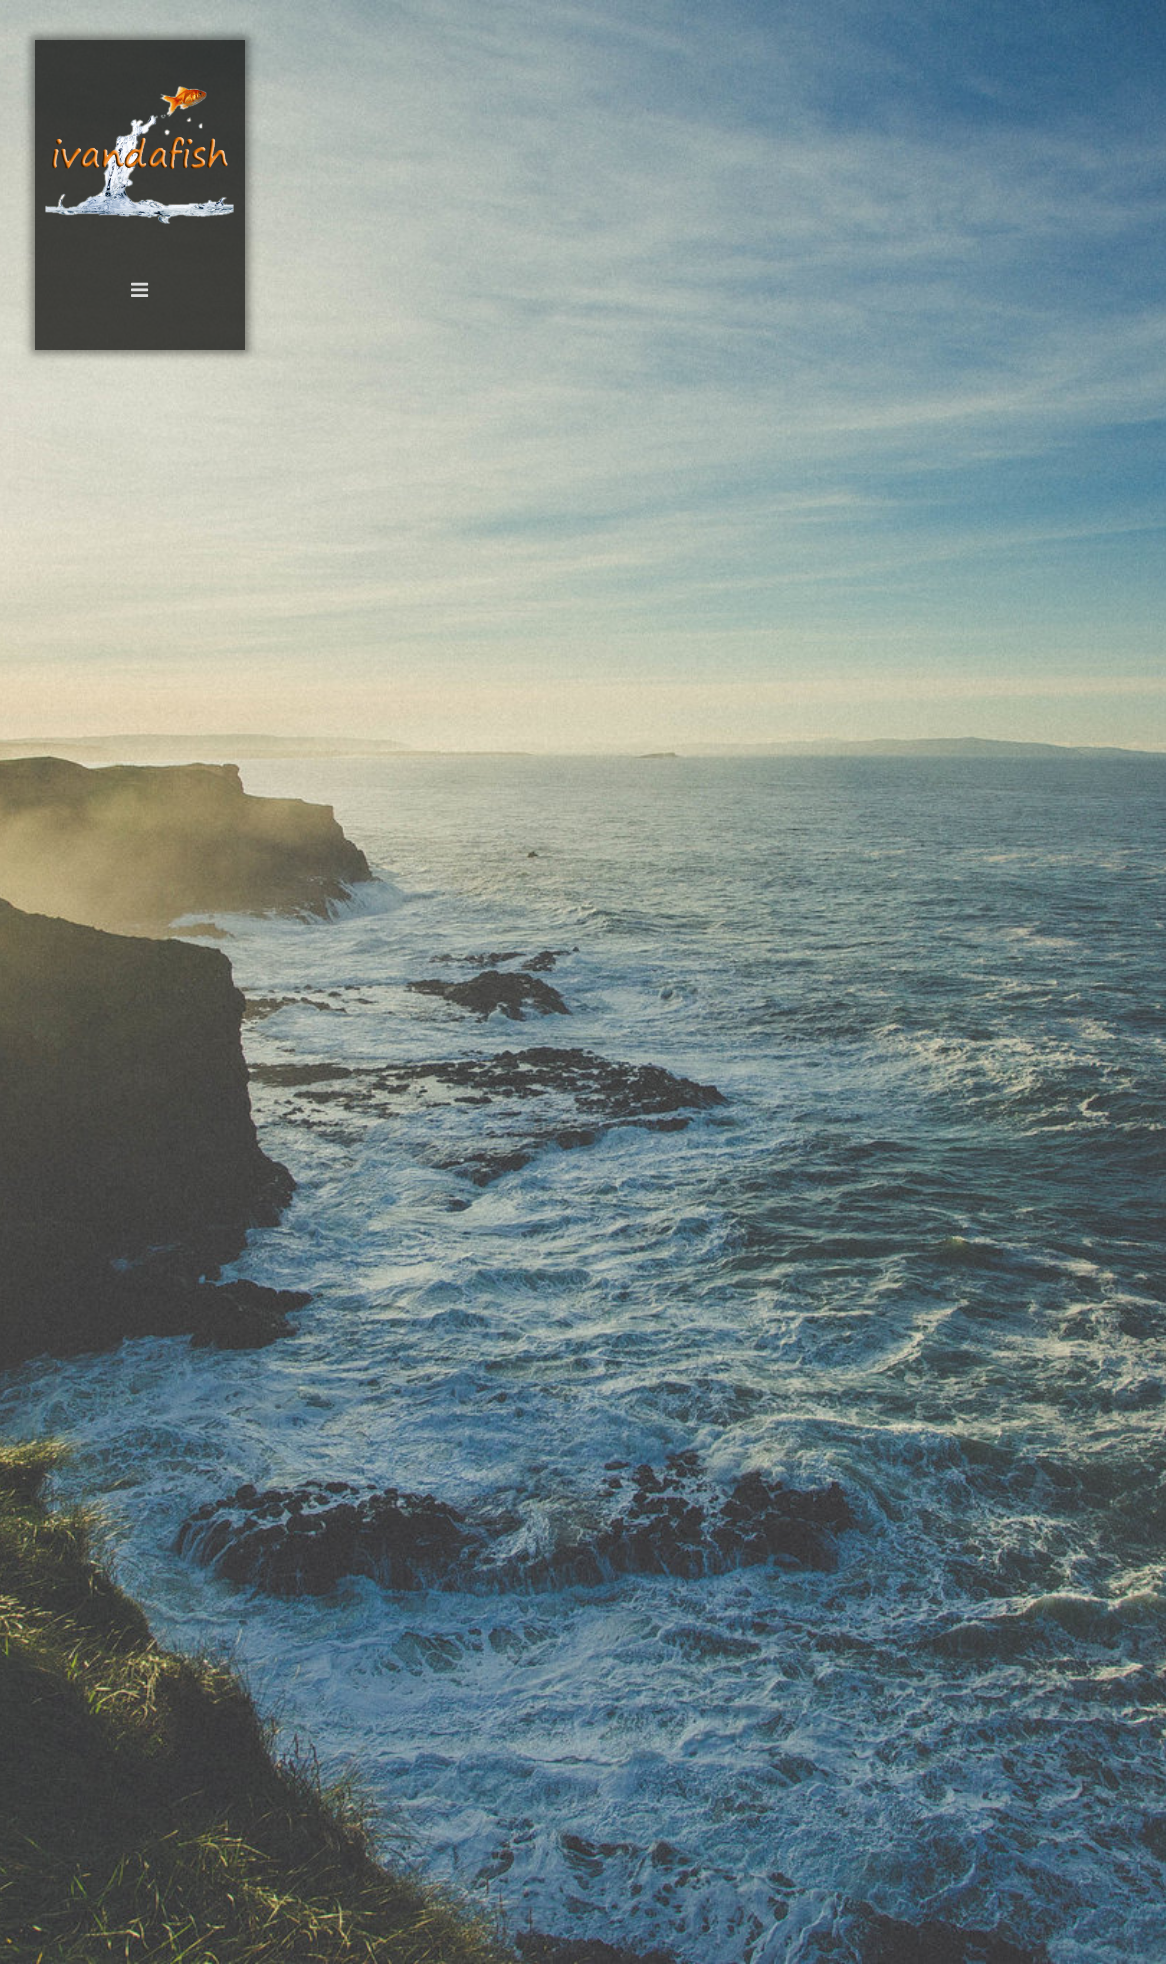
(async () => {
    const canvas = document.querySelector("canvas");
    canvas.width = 1166;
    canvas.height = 1964;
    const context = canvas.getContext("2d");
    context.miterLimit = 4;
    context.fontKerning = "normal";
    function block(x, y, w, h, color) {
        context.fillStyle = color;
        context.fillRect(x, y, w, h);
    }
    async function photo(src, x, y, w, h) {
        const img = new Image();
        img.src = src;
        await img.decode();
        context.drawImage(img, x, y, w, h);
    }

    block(0, 0, 1166, 1964, "rgb(255, 255, 255)");
    await photo("media/1.png", 0, 0, 1166, 1964);
    context.save();
    context.beginPath();
    context.moveTo(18, 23);
    context.lineTo(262, 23);
    context.lineTo(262, 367);
    context.lineTo(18, 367);
    context.closePath();
    context.moveTo(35, 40);
    context.lineTo(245, 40);
    context.lineTo(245, 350);
    context.lineTo(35, 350);
    context.closePath();
    context.clip("evenodd");
    context.fillStyle = "rgba(0, 0, 0, 0.4)";
    context.filter = "blur(4px)";
    context.beginPath();
    context.rect(31, 36, 218, 318);
    context.fill();
    context.filter = "none";
    context.restore();
    block(35, 40, 210, 310, "rgba(0, 0, 0, 0.7)");
    await photo("media/2.png", 45, 86, 189, 138);
    await photo("media/3.png", 131, 282, 18, 15);
})();
